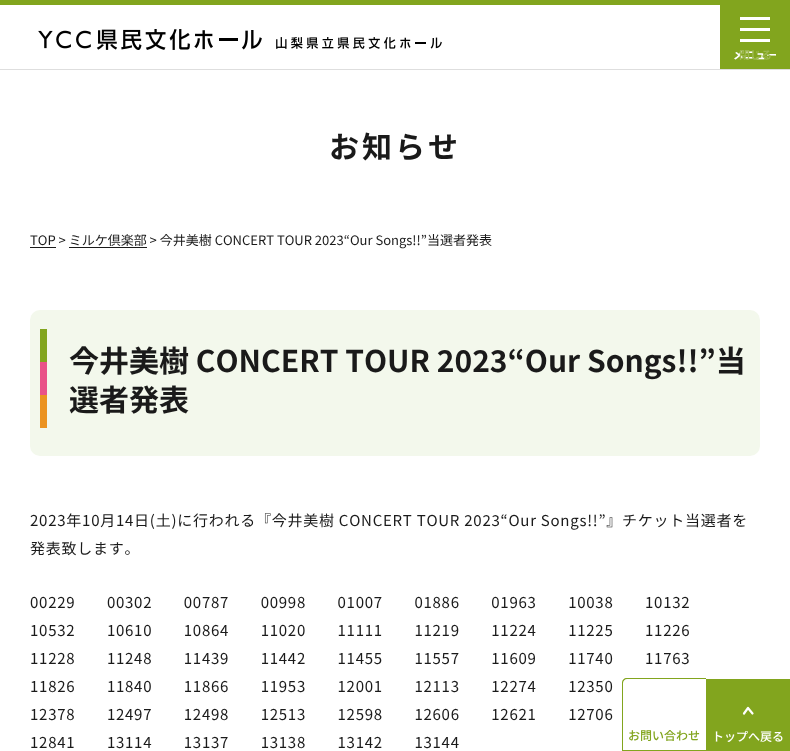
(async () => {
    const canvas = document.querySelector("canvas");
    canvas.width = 790;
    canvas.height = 751;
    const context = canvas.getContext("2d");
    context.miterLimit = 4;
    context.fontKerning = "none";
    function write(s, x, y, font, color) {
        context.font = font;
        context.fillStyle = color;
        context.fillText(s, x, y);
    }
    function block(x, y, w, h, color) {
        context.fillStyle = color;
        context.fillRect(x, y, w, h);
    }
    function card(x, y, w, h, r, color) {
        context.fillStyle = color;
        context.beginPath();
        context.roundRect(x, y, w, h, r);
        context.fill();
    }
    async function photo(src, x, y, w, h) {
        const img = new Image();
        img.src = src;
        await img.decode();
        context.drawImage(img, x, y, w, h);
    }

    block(0, 0, 790, 751, "rgb(255, 255, 255)");
    block(0, 0, 790, 5, "rgb(130, 165, 30)");
    block(0, 69, 790, 1, "rgb(222, 222, 222)");
    await photo("media/1.png", 38, 29, 224, 21);
    await photo("media/2.png", 276, 37, 166, 12);
    block(720, 5, 70, 64, "rgb(130, 165, 30)");
    block(740, 17, 30, 3, "rgb(255, 255, 255)");
    block(740, 28, 30, 3, "rgb(255, 255, 255)");
    block(740, 39, 30, 3, "rgb(255, 255, 255)");
    write("メニュー", 733, 59, "bold 11px Noto Sans JP", "rgb(255, 255, 255)");
    write("閉じる", 739, 59, "bold 11px Noto Sans JP", "rgb(156, 184, 77)");
    context.letterSpacing = "3px";
    write("お知らせ", 329, 158, "bold 30px Noto Sans JP", "rgb(26, 26, 26)");
    block(30, 247, 26, 1, "rgb(26, 26, 26)");
    context.letterSpacing = "0px";
    write("TOP > ミルケ倶楽部 > 今井美樹 CONCERT TOUR 2023“Our Songs!!”当選者発表", 30, 245, "13px Noto Sans JP", "rgb(26, 26, 26)");
    block(69, 247, 78, 1, "rgb(26, 26, 26)");
    card(30, 310, 730, 146, 10, "rgb(243, 248, 236)");
    await photo("media/3.png", 40, 329, 7, 99);
    write("今井美樹 CONCERT TOUR 2023“Our Songs!!”当", 69, 372, "bold 30px Noto Sans JP", "rgb(26, 26, 26)");
    write("選者発表", 69, 411, "bold 30px Noto Sans JP", "rgb(26, 26, 26)");
    context.letterSpacing = "0.75px";
    write("2023年10月14日(土)に行われる『今井美樹 CONCERT TOUR 2023“Our Songs!!”』チケット当選者を", 30, 526, "15px Noto Sans JP", "rgb(26, 26, 26)");
    write("発表致します。", 30, 554, "15px Noto Sans JP", "rgb(26, 26, 26)");
    write("00229　　00302　　00787　　00998　　01007　　01886　　01963　　10038　　10132", 30, 608, "15px Noto Sans JP", "rgb(26, 26, 26)");
    write("10532　　10610　　10864　　11020　　11111　　11219　　11224　　11225　　11226", 30, 636, "15px Noto Sans JP", "rgb(26, 26, 26)");
    write("11228　　11248　　11439　　11442　　11455　　11557　　11609　　11740　　11763", 30, 664, "15px Noto Sans JP", "rgb(26, 26, 26)");
    write("11826　　11840　　11866　　11953　　12001　　12113　　12274　　12350", 30, 692, "15px Noto Sans JP", "rgb(26, 26, 26)");
    write("12378　　12497　　12498　　12513　　12598　　12606　　12621　　12706", 30, 720, "15px Noto Sans JP", "rgb(26, 26, 26)");
    write("12841　　13114　　13137　　13138　　13142　　13144", 30, 748, "15px Noto Sans JP", "rgb(26, 26, 26)");
    context.fillStyle = "rgb(130, 165, 30)";
    context.beginPath();
    context.moveTo(627, 678);
    context.bezierCurveTo(624, 678, 622, 680, 622, 683);
    context.lineTo(622, 751);
    context.lineTo(706, 751);
    context.lineTo(706, 750);
    context.lineTo(623, 750);
    context.lineTo(623, 683);
    context.bezierCurveTo(623, 681, 625, 679, 627, 679);
    context.lineTo(706, 679);
    context.lineTo(706, 678);
    context.closePath();
    context.fill();
    context.letterSpacing = "0px";
    write("お問い合わせ", 628, 740, "500 12px Noto Sans JP", "rgb(130, 165, 30)");
    block(706, 679, 84, 72, "rgb(130, 165, 30)");
    context.beginPath();
    context.moveTo(744, 713.5);
    context.lineTo(748, 708);
    context.lineTo(752.5, 713.5);
    context.strokeStyle = "rgb(255, 255, 255)";
    context.lineWidth = 2.2;
    context.lineCap = "round";
    context.lineJoin = "round";
    context.stroke();
    write("トップへ戻る", 712, 741, "500 12px Noto Sans JP", "rgb(255, 255, 255)");
})();
